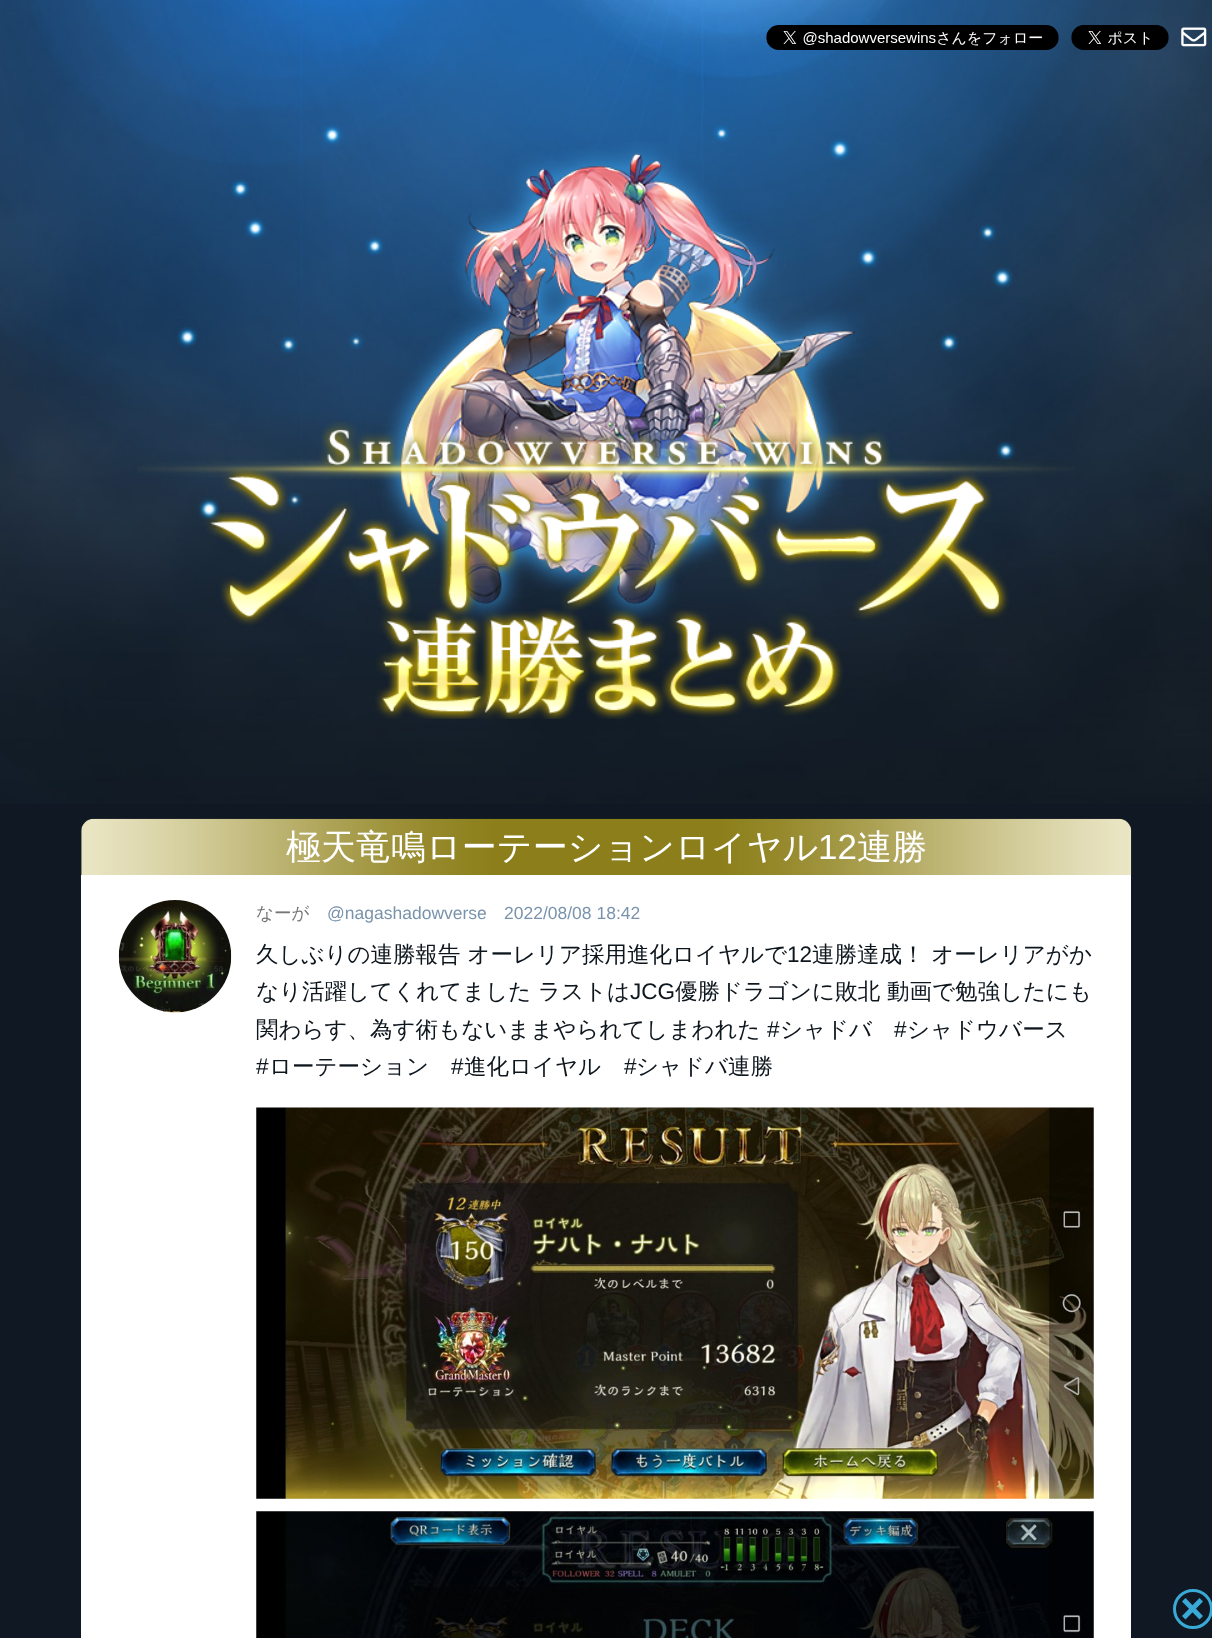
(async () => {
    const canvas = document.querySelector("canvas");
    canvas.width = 1212;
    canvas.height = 1638;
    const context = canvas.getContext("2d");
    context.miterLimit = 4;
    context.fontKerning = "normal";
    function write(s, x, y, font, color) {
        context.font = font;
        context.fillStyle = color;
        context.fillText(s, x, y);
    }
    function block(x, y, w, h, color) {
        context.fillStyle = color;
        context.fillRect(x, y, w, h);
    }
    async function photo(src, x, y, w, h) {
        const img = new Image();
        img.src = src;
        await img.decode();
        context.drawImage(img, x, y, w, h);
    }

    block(0, 0, 1212, 1638, "rgb(16, 25, 35)");
    await photo("media/1.png", 0, 0, 1212, 804);
    await photo("media/2.png", 766, 25, 293, 25);
    await photo("media/3.png", 1071, 25, 98, 25);
    await photo("media/4.png", 1181, 27, 26, 20);
    await photo("media/5.png", 137, 142, 938, 577);
    await photo("media/6.png", 81, 818, 1051, 57);
    write("極天竜鳴ローテーションロイヤル", 286, 859, "500 35px WenQuanYi Zen Hei", "rgb(255, 255, 255)");
    write("12", 818, 859, "35px Liberation Sans", "rgb(255, 255, 255)");
    write("連勝", 857, 859, "500 35px WenQuanYi Zen Hei", "rgb(255, 255, 255)");
    block(81, 875, 1050, 763, "rgb(255, 255, 255)");
    await photo("media/7.png", 118, 900, 114, 113);
    write("なーが", 256, 919, "500 17.5px WenQuanYi Zen Hei", "rgb(117, 117, 117)");
    write("@nagashadowverse", 327, 919, "17.5px Liberation Sans", "rgb(121, 147, 172)");
    write("2022/08/08 18:42", 504, 919, "17.5px Liberation Sans", "rgb(121, 147, 172)");
    write("久しぶりの連勝報告 オーレリア採用進化ロイヤルで", 256, 962, "500 22.5px WenQuanYi Zen Hei", "rgb(13, 21, 29)");
    write("12", 787, 962, "22.5px Liberation Sans", "rgb(13, 21, 29)");
    write("連勝達成！ オーレリアがか", 812, 962, "500 22.5px WenQuanYi Zen Hei", "rgb(13, 21, 29)");
    write("なり活躍してくれてました ラストは", 256, 999, "500 22.5px WenQuanYi Zen Hei", "rgb(13, 21, 29)");
    write("JCG", 630, 999, "22.5px Liberation Sans", "rgb(13, 21, 29)");
    write("優勝ドラゴンに敗北 動画で勉強したにも", 675, 999, "500 22.5px WenQuanYi Zen Hei", "rgb(13, 21, 29)");
    write("関わらす、為す術もないままやられてしまわれた", 256, 1037, "500 22.5px WenQuanYi Zen Hei", "rgb(13, 21, 29)");
    write("#", 767, 1037, "22.5px Liberation Sans", "rgb(13, 21, 29)");
    write("シャドバ", 780, 1037, "500 22.5px WenQuanYi Zen Hei", "rgb(13, 21, 29)");
    write("#", 894, 1037, "22.5px Liberation Sans", "rgb(13, 21, 29)");
    write("シャドウバース", 907, 1037, "500 22.5px WenQuanYi Zen Hei", "rgb(13, 21, 29)");
    write("#", 256, 1074, "22.5px Liberation Sans", "rgb(13, 21, 29)");
    write("ローテーション", 269, 1074, "500 22.5px WenQuanYi Zen Hei", "rgb(13, 21, 29)");
    write("#", 451, 1074, "22.5px Liberation Sans", "rgb(13, 21, 29)");
    write("進化ロイヤル", 464, 1074, "500 22.5px WenQuanYi Zen Hei", "rgb(13, 21, 29)");
    write("#", 624, 1074, "22.5px Liberation Sans", "rgb(13, 21, 29)");
    write("シャドバ連勝", 636, 1074, "500 22.5px WenQuanYi Zen Hei", "rgb(13, 21, 29)");
    await photo("media/8.png", 256, 1107, 838, 392);
    await photo("media/9.png", 256, 1511, 838, 127);
    context.beginPath();
    context.arc(1193, 1609, 18.5, 0, Math.PI * 2);
    context.strokeStyle = "rgb(57, 169, 214)";
    context.lineWidth = 3;
    context.stroke();
    context.fillStyle = "rgb(57, 169, 214)";
    context.beginPath();
    context.moveTo(1199.5, 1598);
    context.lineTo(1203, 1601.5);
    context.lineTo(1185.5, 1619.5);
    context.lineTo(1182, 1616);
    context.closePath();
    context.fill();
    context.beginPath();
    context.moveTo(1199.5, 1619.5);
    context.lineTo(1182, 1601.5);
    context.lineTo(1185.5, 1598);
    context.lineTo(1203, 1616);
    context.closePath();
    context.fill();
})();
